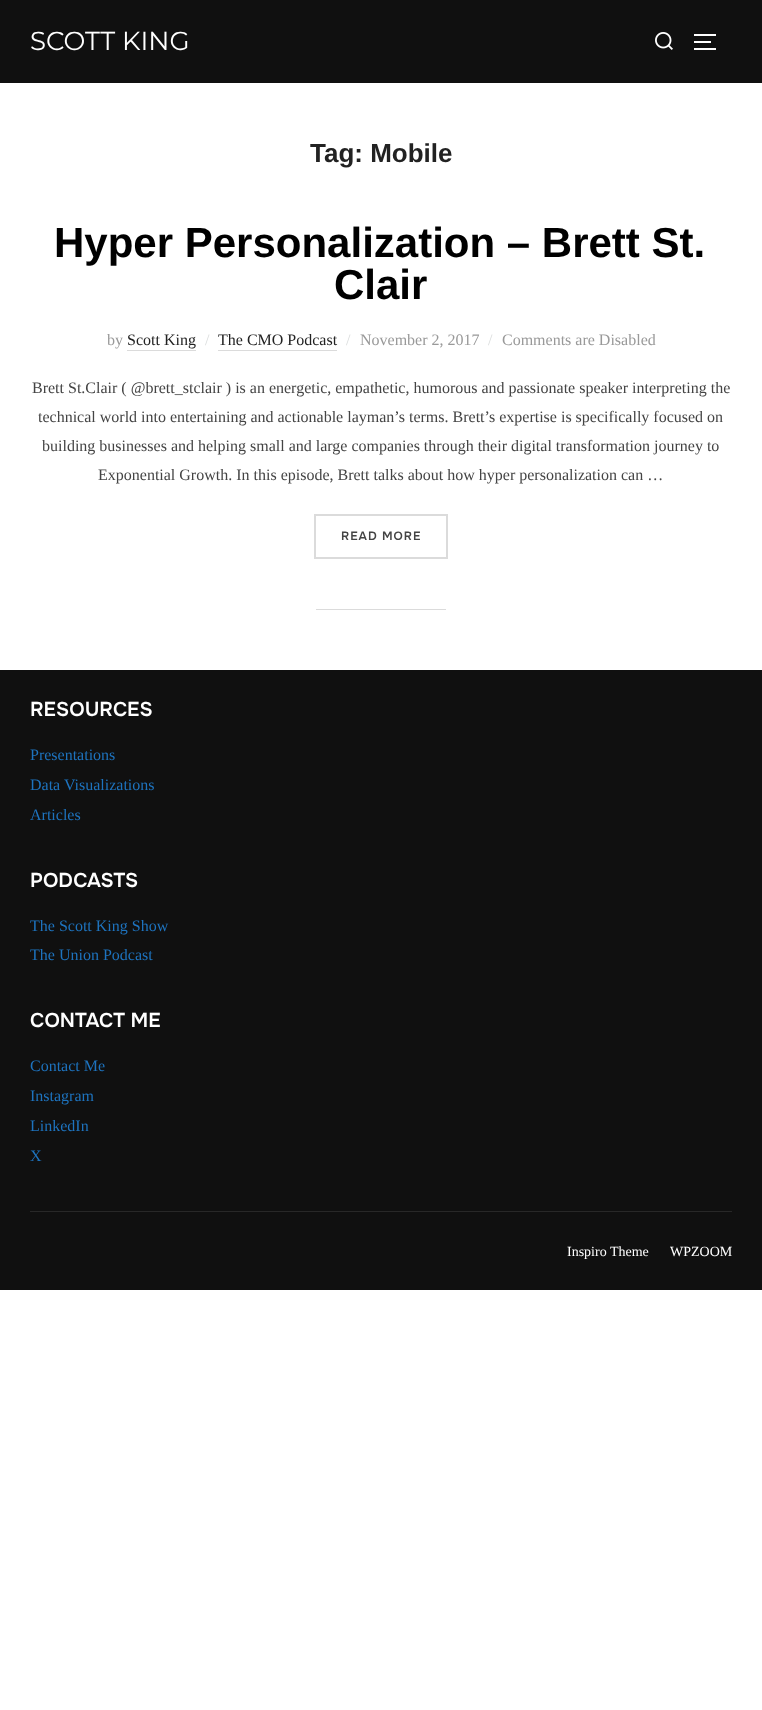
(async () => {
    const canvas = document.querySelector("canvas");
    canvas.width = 762;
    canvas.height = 1710;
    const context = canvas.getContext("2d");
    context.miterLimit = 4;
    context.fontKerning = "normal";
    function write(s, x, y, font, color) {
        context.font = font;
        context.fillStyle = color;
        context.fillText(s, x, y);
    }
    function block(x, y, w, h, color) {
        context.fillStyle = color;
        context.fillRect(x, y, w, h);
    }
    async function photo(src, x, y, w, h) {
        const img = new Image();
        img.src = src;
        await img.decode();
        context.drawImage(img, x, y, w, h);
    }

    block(0, 0, 762, 1710, "rgb(255, 255, 255)");
    block(0, 0, 762, 83, "rgb(16, 16, 16)");
    write("SCOTT KING", 30, 50, "100 26px Montserrat", "rgb(255, 255, 255)");
    await photo("media/1.png", 655, 32, 18, 18);
    block(694, 34, 22, 2, "rgb(255, 255, 255)");
    block(694, 41, 17, 2, "rgb(255, 255, 255)");
    block(694, 48, 22, 2, "rgb(255, 255, 255)");
    write("Tag: Mobile", 310, 162, "bold 26px Liberation Sans", "rgb(34, 34, 34)");
    write("Hyper Personalization – Brett St.", 54, 257, "bold 42px Liberation Sans", "rgb(0, 0, 0)");
    write("Clair", 334, 299, "bold 42px Liberation Sans", "rgb(0, 0, 0)");
    write("by", 107, 345, "16px Liberation Serif", "rgb(153, 153, 153)");
    write("Scott King", 127, 345, "16px Liberation Serif", "rgb(34, 34, 34)");
    block(127, 350, 69, 1, "rgb(219, 219, 219)");
    write("/", 205, 345, "16px Liberation Serif", "rgb(219, 221, 221)");
    write("The CMO Podcast", 218, 345, "16px Liberation Serif", "rgb(34, 34, 34)");
    block(218, 350, 119, 1, "rgb(219, 219, 219)");
    write("/", 346, 345, "16px Liberation Serif", "rgb(219, 221, 221)");
    write("November 2, 2017", 360, 345, "16px Liberation Serif", "rgb(153, 153, 153)");
    write("/", 488, 345, "16px Liberation Serif", "rgb(219, 221, 221)");
    write("Comments are Disabled", 502, 345, "16px Liberation Serif", "rgb(153, 153, 153)");
    write("Brett St.Clair ( @brett_stclair ) is an energetic, empathetic, humorous and passionate speaker interpreting the", 32, 393, "16px Liberation Serif", "rgb(68, 68, 68)");
    write("technical world into entertaining and actionable layman’s terms. Brett’s expertise is specifically focused on", 38, 422, "16px Liberation Serif", "rgb(68, 68, 68)");
    write("building businesses and helping small and large companies through their digital transformation journey to", 42, 451, "16px Liberation Serif", "rgb(68, 68, 68)");
    write("Exponential Growth. In this episode, Brett talks about how hyper personalization can …", 98, 480, "16px Liberation Serif", "rgb(68, 68, 68)");
    context.strokeStyle = "rgb(219, 219, 219)";
    context.lineWidth = 2;
    context.strokeRect(315, 515, 132, 43);
    context.letterSpacing = "1px";
    write("READ MORE", 341, 540, "600 12px Onest", "rgb(68, 68, 68)");
    block(316, 609, 130, 1, "rgb(219, 219, 219)");
    block(0, 670, 762, 620, "rgb(16, 16, 16)");
    context.letterSpacing = "0px";
    write("RESOURCES", 30, 716, "600 20px Onest", "rgb(255, 255, 255)");
    write("Presentations", 30, 760, "16px Liberation Serif", "rgb(30, 115, 190)");
    write("Data Visualizations", 30, 790, "16px Liberation Serif", "rgb(30, 115, 190)");
    write("Articles", 30, 820, "16px Liberation Serif", "rgb(30, 115, 190)");
    write("PODCASTS", 30, 887, "600 20px Onest", "rgb(255, 255, 255)");
    write("The Scott King Show", 30, 931, "16px Liberation Serif", "rgb(30, 115, 190)");
    write("The Union Podcast", 30, 960, "16px Liberation Serif", "rgb(30, 115, 190)");
    write("CONTACT ME", 30, 1027, "600 20px Onest", "rgb(255, 255, 255)");
    write("Contact Me", 30, 1071, "16px Liberation Serif", "rgb(30, 115, 190)");
    write("Instagram", 30, 1101, "16px Liberation Serif", "rgb(30, 115, 190)");
    write("LinkedIn", 30, 1131, "16px Liberation Serif", "rgb(30, 115, 190)");
    write("X", 30, 1161, "16px Liberation Serif", "rgb(30, 115, 190)");
    block(30, 1211, 702, 1, "rgb(40, 40, 40)");
    write("Inspiro Theme", 567, 1256, "14px Liberation Serif", "rgb(255, 255, 255)");
    write("WPZOOM", 670, 1256, "14px Liberation Serif", "rgb(255, 255, 255)");
})();
